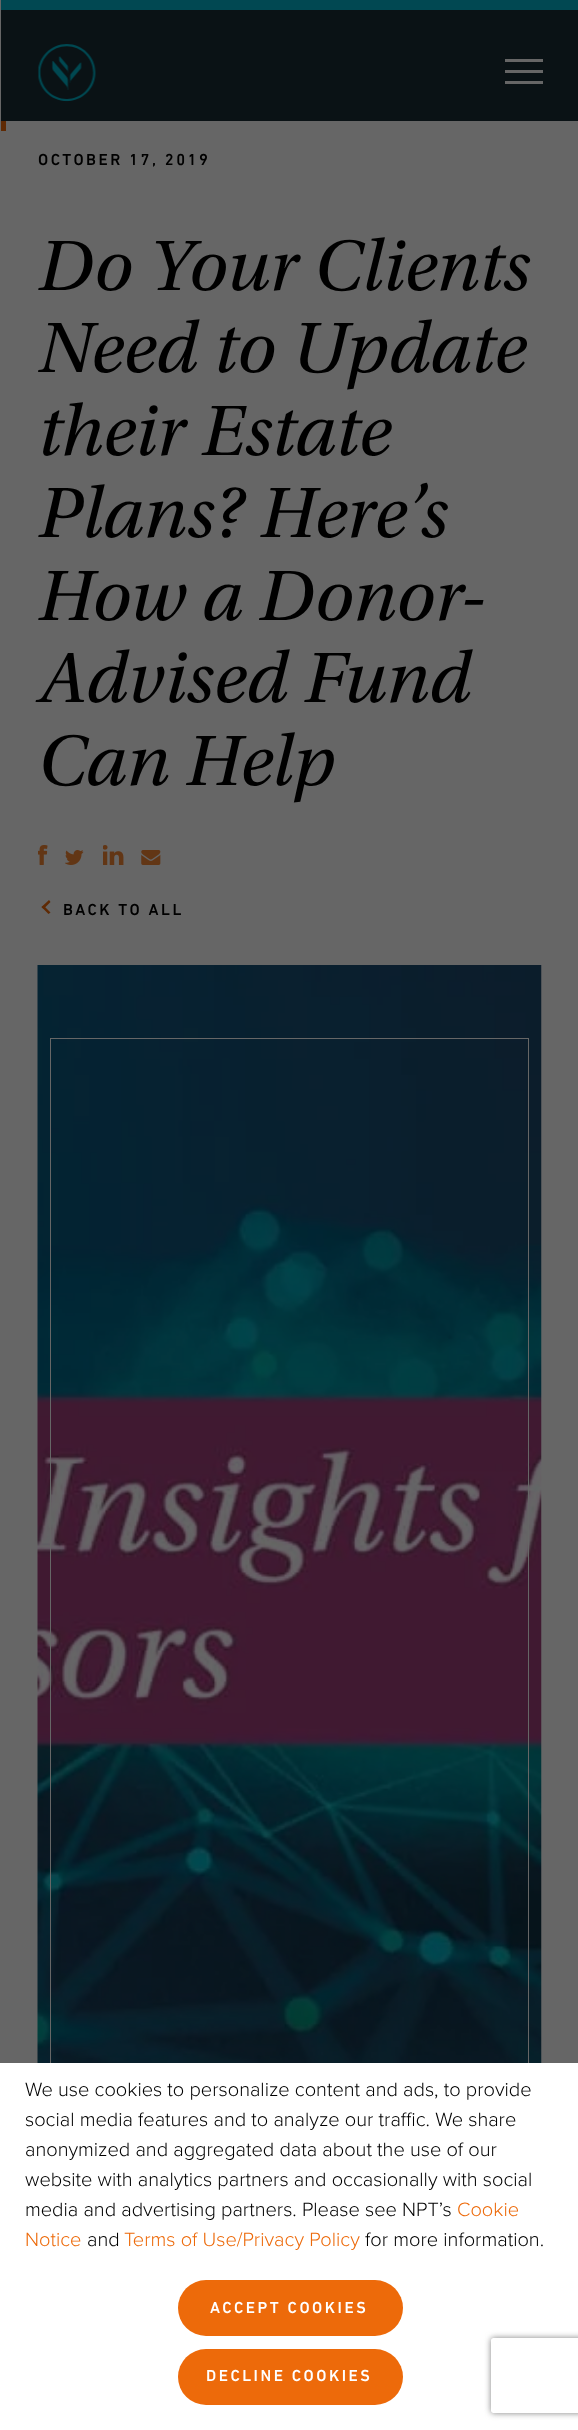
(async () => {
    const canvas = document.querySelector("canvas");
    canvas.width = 578;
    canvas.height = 2430;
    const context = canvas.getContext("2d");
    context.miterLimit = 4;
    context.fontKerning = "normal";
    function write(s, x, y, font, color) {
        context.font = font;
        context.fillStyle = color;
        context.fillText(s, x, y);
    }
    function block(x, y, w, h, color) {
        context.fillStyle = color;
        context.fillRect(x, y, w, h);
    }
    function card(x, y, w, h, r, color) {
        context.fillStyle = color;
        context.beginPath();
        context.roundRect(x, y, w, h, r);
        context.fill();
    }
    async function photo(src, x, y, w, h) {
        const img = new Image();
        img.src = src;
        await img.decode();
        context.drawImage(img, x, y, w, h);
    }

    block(0, 0, 578, 2430, "rgb(102, 102, 102)");
    block(1, 10, 577, 111, "rgb(10, 18, 21)");
    block(1, 0, 577, 10, "rgb(1, 72, 82)");
    await photo("media/1.png", 38, 44, 58, 58);
    block(505, 59, 38, 3, "rgb(102, 102, 102)");
    block(505, 70, 38, 3, "rgb(102, 102, 102)");
    block(505, 81, 38, 3, "rgb(102, 102, 102)");
    block(1, 121, 5, 10, "rgb(95, 42, 4)");
    context.letterSpacing = "2.5px";
    write("OCTOBER 17, 2019", 38, 165, "500 16.25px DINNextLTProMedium", "rgb(0, 0, 0)");
    context.letterSpacing = "0px";
    write("Do Your Clients", 38, 290, "italic 75px Utopia", "rgb(0, 0, 0)");
    write("Need to Update", 38, 372, "italic 75px Utopia", "rgb(0, 0, 0)");
    write("their Estate", 38, 455, "italic 75px Utopia", "rgb(0, 0, 0)");
    write("Plans? Here’s", 38, 537, "italic 75px Utopia", "rgb(0, 0, 0)");
    write("How a Donor-", 38, 620, "italic 75px Utopia", "rgb(0, 0, 0)");
    write("Advised Fund", 38, 702, "italic 75px Utopia", "rgb(0, 0, 0)");
    write("Can Help", 38, 785, "italic 75px Utopia", "rgb(0, 0, 0)");
    await photo("media/2.png", 38, 845, 10, 20);
    await photo("media/3.png", 65, 850, 19, 15);
    await photo("media/4.png", 103, 845, 21, 20);
    await photo("media/5.png", 141, 850, 20, 15);
    context.fillStyle = "rgb(95, 42, 4)";
    context.beginPath();
    context.moveTo(41.5, 907);
    context.lineTo(49, 900);
    context.lineTo(50.5, 902);
    context.lineTo(43.5, 909);
    context.closePath();
    context.fill();
    context.beginPath();
    context.moveTo(41.5, 907);
    context.lineTo(43.5, 905.5);
    context.lineTo(50.5, 912.5);
    context.lineTo(48.5, 914);
    context.closePath();
    context.fill();
    context.letterSpacing = "2.5px";
    write("BACK TO ALL", 63, 915, "500 16.25px DINNextLTProMedium", "rgb(0, 0, 0)");
    await photo("media/6.png", 37, 965, 505, 1098);
    context.strokeStyle = "rgb(102, 102, 102)";
    context.strokeRect(50.5, 1038.5, 478, 1067);
    block(0, 2063, 578, 367, "rgb(255, 255, 255)");
    context.letterSpacing = "0px";
    write("We use cookies to personalize content and ads, to provide", 25, 2096, "300 20px Proxima Nova", "rgb(0, 0, 0)");
    write("social media features and to analyze our traffic. We share", 25, 2126, "300 20px Proxima Nova", "rgb(0, 0, 0)");
    write("anonymized and aggregated data about the use of our", 25, 2156, "300 20px Proxima Nova", "rgb(0, 0, 0)");
    write("website with analytics partners and occasionally with social", 25, 2186, "300 20px Proxima Nova", "rgb(0, 0, 0)");
    write("media and advertising partners. Please see NPT’s", 25, 2216, "300 20px Proxima Nova", "rgb(0, 0, 0)");
    write("Cookie", 457, 2216, "300 20px Proxima Nova", "rgb(237, 106, 10)");
    write("Notice", 25, 2246, "300 20px Proxima Nova", "rgb(237, 106, 10)");
    write("and", 87, 2246, "300 20px Proxima Nova", "rgb(0, 0, 0)");
    write("Terms of Use/Privacy Policy", 124, 2246, "300 20px Proxima Nova", "rgb(237, 106, 10)");
    write("for more information.", 365, 2246, "300 20px Proxima Nova", "rgb(0, 0, 0)");
    card(178, 2280, 225, 56, 28, "rgb(237, 106, 10)");
    context.letterSpacing = "2.5px";
    write("ACCEPT COOKIES", 210, 2313, "500 16.25px DINNextLTProMedium", "rgb(255, 255, 255)");
    card(178, 2349, 225, 56, 28, "rgb(237, 106, 10)");
    write("DECLINE COOKIES", 206, 2381, "500 16.25px DINNextLTProMedium", "rgb(255, 255, 255)");
    context.save();
    context.beginPath();
    context.moveTo(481, 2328);
    context.lineTo(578, 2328);
    context.lineTo(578, 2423);
    context.lineTo(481, 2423);
    context.closePath();
    context.moveTo(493.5, 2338);
    context.lineTo(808.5, 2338);
    context.bezierCurveTo(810, 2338, 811, 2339, 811, 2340.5);
    context.lineTo(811, 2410.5);
    context.bezierCurveTo(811, 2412, 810, 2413, 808.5, 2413);
    context.lineTo(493.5, 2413);
    context.bezierCurveTo(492, 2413, 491, 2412, 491, 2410.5);
    context.lineTo(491, 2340.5);
    context.bezierCurveTo(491, 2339, 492, 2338, 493.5, 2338);
    context.closePath();
    context.clip("evenodd");
    context.fillStyle = "rgb(128, 128, 128)";
    context.filter = "blur(3px)";
    context.beginPath();
    context.roundRect(491, 2338, 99, 75, 2.5);
    context.fill();
    context.filter = "none";
    context.restore();
})();
